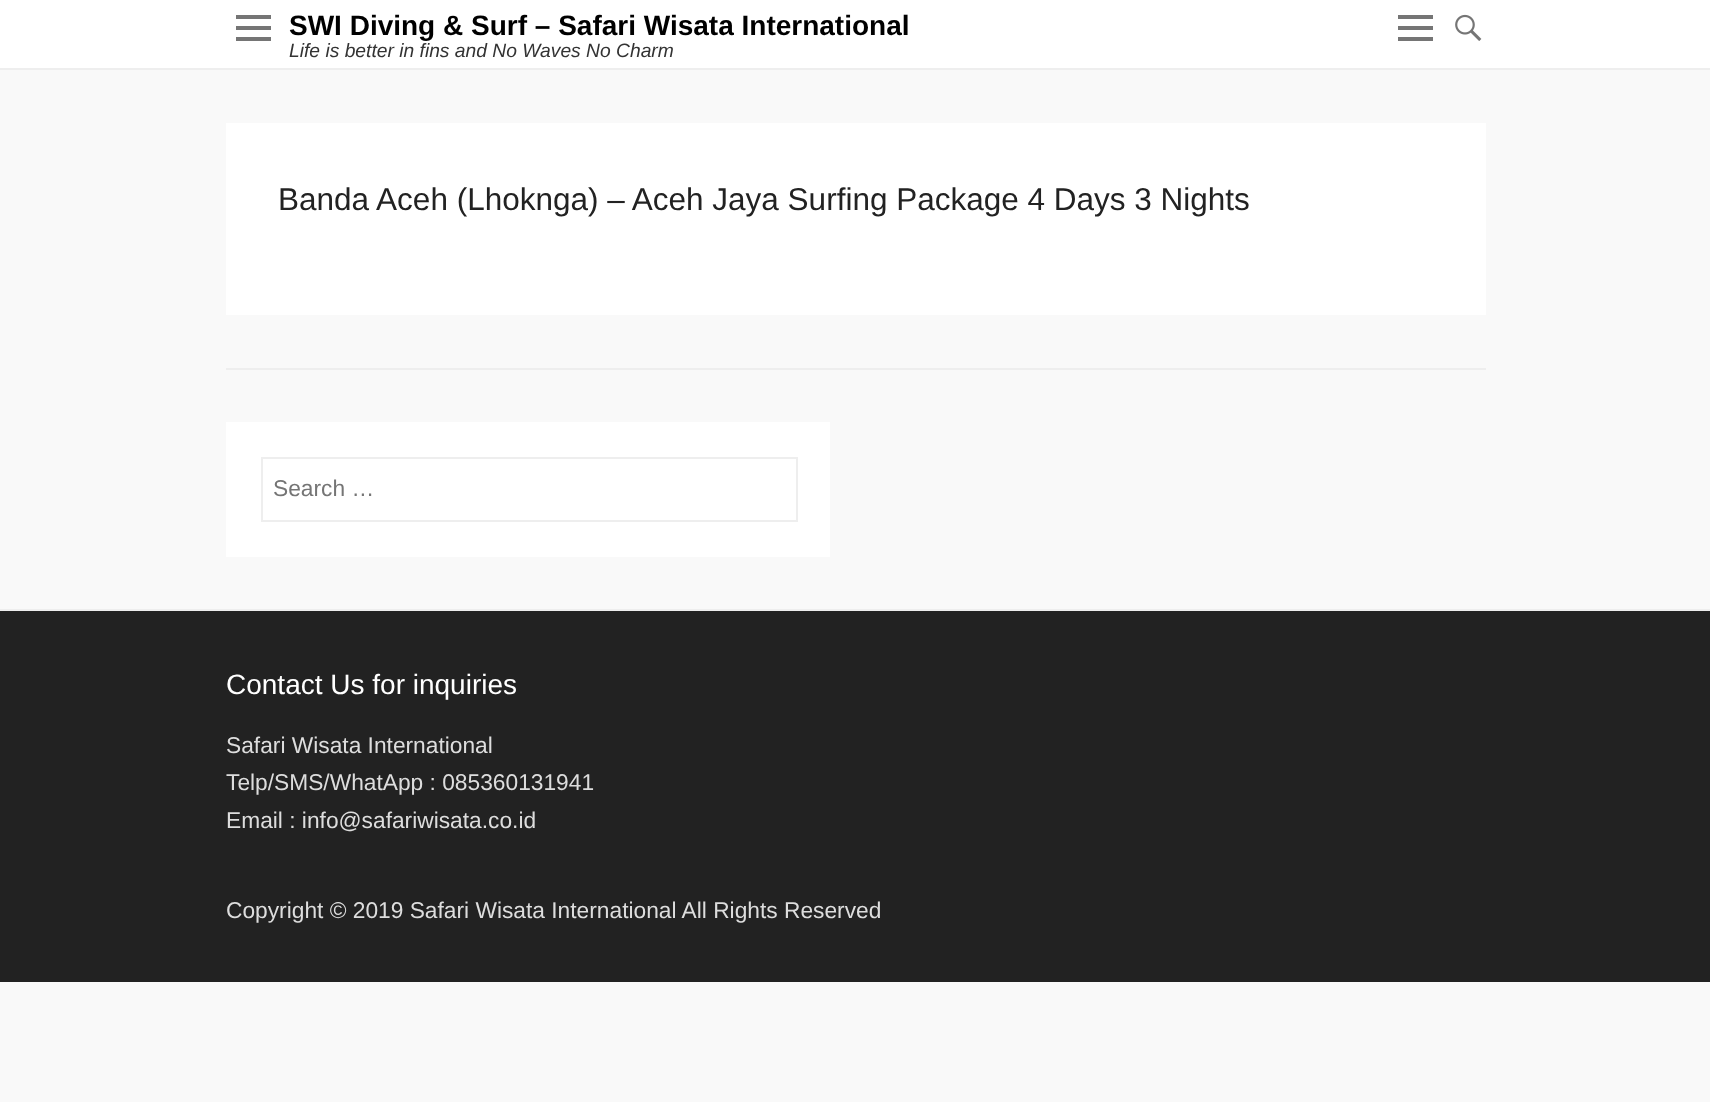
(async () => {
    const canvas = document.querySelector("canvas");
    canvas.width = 1710;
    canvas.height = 1102;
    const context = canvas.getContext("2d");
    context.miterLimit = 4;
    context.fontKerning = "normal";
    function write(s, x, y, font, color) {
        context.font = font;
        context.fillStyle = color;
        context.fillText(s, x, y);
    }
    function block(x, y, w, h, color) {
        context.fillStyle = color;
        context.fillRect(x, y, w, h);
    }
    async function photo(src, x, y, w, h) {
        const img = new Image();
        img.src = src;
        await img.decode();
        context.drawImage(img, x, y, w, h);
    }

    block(0, 0, 1710, 1102, "rgb(249, 249, 249)");
    block(0, 0, 1710, 68, "rgb(255, 255, 255)");
    block(0, 68, 1710, 2, "rgb(238, 238, 238)");
    context.fillStyle = "rgb(117, 117, 117)";
    context.beginPath();
    context.moveTo(236, 41);
    context.lineTo(236, 37);
    context.lineTo(271, 37);
    context.lineTo(271, 41);
    context.closePath();
    context.moveTo(236, 30);
    context.lineTo(236, 26);
    context.lineTo(271, 26);
    context.lineTo(271, 30);
    context.closePath();
    context.moveTo(236, 19);
    context.lineTo(236, 15);
    context.lineTo(271, 15);
    context.lineTo(271, 19);
    context.closePath();
    context.fill();
    write("SWI Diving & Surf – Safari Wisata International", 289, 35, "bold 28px Liberation Sans", "rgb(0, 0, 0)");
    write("Life is better in fins and No Waves No Charm", 289, 57, "italic 19.25px Liberation Sans", "rgb(51, 51, 51)");
    context.fillStyle = "rgb(117, 117, 117)";
    context.beginPath();
    context.moveTo(1398, 41);
    context.lineTo(1398, 37);
    context.lineTo(1433, 37);
    context.lineTo(1433, 41);
    context.closePath();
    context.moveTo(1398, 30);
    context.lineTo(1398, 26);
    context.lineTo(1433, 26);
    context.lineTo(1433, 30);
    context.closePath();
    context.moveTo(1398, 19);
    context.lineTo(1398, 15);
    context.lineTo(1433, 15);
    context.lineTo(1433, 19);
    context.closePath();
    context.fill();
    await photo("media/1.png", 1455, 14, 27, 27);
    block(226, 368, 1260, 2, "rgb(238, 238, 238)");
    block(226, 123, 1260, 192, "rgb(255, 255, 255)");
    write("Banda Aceh (Lhoknga) – Aceh Jaya Surfing Package 4 Days 3 Nights", 278, 210, "31.5px Liberation Sans", "rgb(34, 34, 34)");
    block(226, 422, 604, 135, "rgb(255, 255, 255)");
    context.strokeStyle = "rgb(238, 238, 238)";
    context.lineWidth = 2;
    context.strokeRect(262, 458, 535, 63);
    write("Search …", 273, 496, "22.75px Liberation Sans", "rgb(117, 117, 117)");
    block(0, 609, 1710, 2, "rgb(238, 238, 238)");
    block(0, 611, 1710, 371, "rgb(34, 34, 34)");
    write("Contact Us for inquiries", 226, 694, "28px Liberation Sans", "rgb(255, 255, 255)");
    write("Safari Wisata International", 226, 753, "22.75px Liberation Sans", "rgb(221, 221, 221)");
    write("Telp/SMS/WhatApp : 085360131941", 226, 790, "22.75px Liberation Sans", "rgb(221, 221, 221)");
    write("Email : info@safariwisata.co.id", 226, 828, "22.75px Liberation Sans", "rgb(221, 221, 221)");
    write("Copyright © 2019 Safari Wisata International All Rights Reserved", 226, 918, "22.75px Liberation Sans", "rgb(221, 221, 221)");
})();
